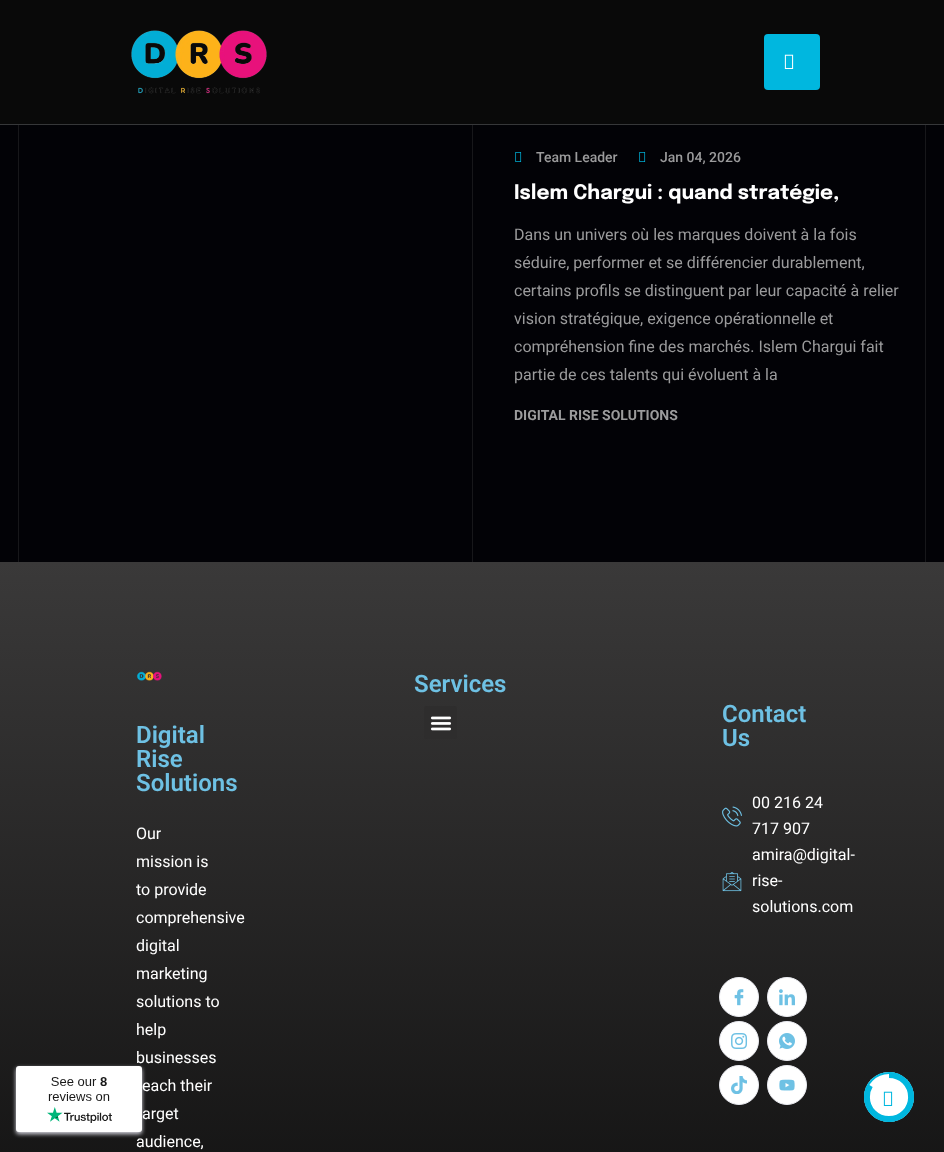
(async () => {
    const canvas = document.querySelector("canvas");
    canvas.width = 944;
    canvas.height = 1152;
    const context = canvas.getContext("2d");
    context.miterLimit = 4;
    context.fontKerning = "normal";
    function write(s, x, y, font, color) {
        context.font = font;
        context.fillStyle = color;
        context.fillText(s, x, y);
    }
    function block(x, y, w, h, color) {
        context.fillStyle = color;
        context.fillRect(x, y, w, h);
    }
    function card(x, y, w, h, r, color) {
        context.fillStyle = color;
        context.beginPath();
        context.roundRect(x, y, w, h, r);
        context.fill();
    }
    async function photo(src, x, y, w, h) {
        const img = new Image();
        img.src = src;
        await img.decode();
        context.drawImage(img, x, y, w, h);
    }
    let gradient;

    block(0, 0, 944, 1152, "rgb(2, 2, 6)");
    block(0, 0, 944, 124, "rgb(9, 9, 9)");
    block(0, 124, 944, 1, "rgb(54, 55, 57)");
    await photo("media/1.png", 131, 30, 136, 64);
    card(764, 34, 56, 56, 4, "rgb(0, 183, 223)");
    await photo("media/2.png", 784, 54, 10, 15);
    block(18, 125, 1, 437, "rgb(23, 23, 26)");
    block(472, 125, 1, 437, "rgb(23, 23, 26)");
    block(925, 125, 1, 437, "rgb(23, 23, 26)");
    await photo("media/3.png", 515, 152, 7, 10);
    write("Team Leader", 536, 162, "500 14px Roboto", "rgb(155, 155, 156)");
    await photo("media/3.png", 639, 152, 7, 10);
    write("Jan 04, 2026", 660, 162, "500 14px Roboto", "rgb(155, 155, 156)");
    write("Islem Chargui : quand stratégie,", 514, 199, "bold 20px Epilogue", "rgb(255, 255, 255)");
    write("Dans un univers où les marques doivent à la fois", 514, 240, "16px Roboto", "rgb(155, 155, 156)");
    write("séduire, performer et se différencier durablement,", 514, 268, "16px Roboto", "rgb(155, 155, 156)");
    write("certains profils se distinguent par leur capacité à relier", 514, 296, "16px Roboto", "rgb(155, 155, 156)");
    write("vision stratégique, exigence opérationnelle et", 514, 324, "16px Roboto", "rgb(155, 155, 156)");
    write("compréhension fine des marchés. Islem Chargui fait", 514, 352, "16px Roboto", "rgb(155, 155, 156)");
    write("partie de ces talents qui évoluent à la", 514, 380, "16px Roboto", "rgb(155, 155, 156)");
    write("DIGITAL RISE SOLUTIONS", 514, 420, "bold 14px Roboto", "rgb(155, 155, 156)");
    gradient = context.createLinearGradient(472, 562, 472, 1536);
    gradient.addColorStop(0, "rgb(58, 57, 57)");
    gradient.addColorStop(1, "rgb(0, 0, 0)");
    context.fillStyle = gradient;
    context.fillRect(0, 562, 944, 590);
    context.fillStyle = "rgb(220, 220, 230)";
    context.filter = "blur(2px)";
    context.beginPath();
    context.roundRect(16, 1068, 126, 66, 3);
    context.fill();
    context.filter = "none";
    card(16, 1066, 126, 66, 3, "rgb(255, 255, 255)");
    await photo("media/4.png", 47, 1077, 65, 46);
    write("Services", 414, 692, "600 24px Roboto", "rgb(110, 193, 228)");
    card(424, 706, 33, 33, 3, "rgb(46, 45, 45)");
    await photo("media/5.png", 430, 716, 22, 15);
    await photo("media/6.png", 136, 671, 26, 10);
    write("Digital", 136, 743, "600 24px Roboto", "rgb(110, 193, 228)");
    write("Rise", 136, 767, "600 24px Roboto", "rgb(110, 193, 228)");
    write("Solutions", 136, 791, "600 24px Roboto", "rgb(110, 193, 228)");
    write("Our", 136, 839, "16px Roboto", "rgb(255, 255, 255)");
    write("mission is", 136, 867, "16px Roboto", "rgb(255, 255, 255)");
    write("to provide", 136, 895, "16px Roboto", "rgb(255, 255, 255)");
    write("comprehensive", 136, 923, "16px Roboto", "rgb(255, 255, 255)");
    write("digital", 136, 951, "16px Roboto", "rgb(255, 255, 255)");
    write("marketing", 136, 979, "16px Roboto", "rgb(255, 255, 255)");
    write("solutions to", 136, 1007, "16px Roboto", "rgb(255, 255, 255)");
    write("help", 136, 1035, "16px Roboto", "rgb(255, 255, 255)");
    write("businesses", 136, 1063, "16px Roboto", "rgb(255, 255, 255)");
    write("each their", 142, 1091, "16px Roboto", "rgb(255, 255, 255)");
    write("arget", 142, 1119, "16px Roboto", "rgb(255, 255, 255)");
    write("audience,", 136, 1147, "16px Roboto", "rgb(255, 255, 255)");
    write("Contact", 722, 722, "600 24px Roboto", "rgb(110, 193, 228)");
    write("Us", 722, 746, "600 24px Roboto", "rgb(110, 193, 228)");
    await photo("media/7.png", 722, 806, 20, 21);
    write("00 216 24", 752, 808, "16px Roboto", "rgb(255, 255, 255)");
    write("717 907", 752, 834, "16px Roboto", "rgb(255, 255, 255)");
    await photo("media/8.png", 722, 872, 20, 20);
    write("amira@digital-", 752, 860, "16px Roboto", "rgb(255, 255, 255)");
    write("rise-", 752, 886, "16px Roboto", "rgb(255, 255, 255)");
    write("solutions.com", 752, 912, "16px Roboto", "rgb(255, 255, 255)");
    context.beginPath();
    context.arc(739, 997, 19.5, 0, Math.PI * 2);
    context.fill();
    context.strokeStyle = "rgb(234, 235, 241)";
    context.stroke();
    await photo("media/9.png", 734, 989, 10, 17);
    context.beginPath();
    context.arc(787, 997, 19.5, 0, Math.PI * 2);
    context.fill();
    context.stroke();
    await photo("media/10.png", 779, 989, 16, 17);
    context.beginPath();
    context.arc(739, 1041, 19.5, 0, Math.PI * 2);
    context.fill();
    context.stroke();
    await photo("media/11.png", 731, 1033, 17, 16);
    context.beginPath();
    context.arc(787, 1041, 19.5, 0, Math.PI * 2);
    context.fill();
    context.stroke();
    await photo("media/12.png", 779, 1033, 16, 16);
    context.beginPath();
    context.arc(739, 1085, 19.5, 0, Math.PI * 2);
    context.fill();
    context.stroke();
    await photo("media/13.png", 731, 1076, 16, 18);
    context.beginPath();
    context.arc(787, 1085, 19.5, 0, Math.PI * 2);
    context.fill();
    context.stroke();
    await photo("media/14.png", 779, 1079, 16, 12);
    context.beginPath();
    context.arc(889, 1097, 25, 0, Math.PI * 2);
    context.fill();
    context.save();
    context.beginPath();
    context.roundRect(864, 1072, 50, 50, 25);
    context.clip();
    context.beginPath();
    context.moveTo(889, 1073);
    context.bezierCurveTo(902.5, 1073, 913, 1083.5, 913, 1097);
    context.bezierCurveTo(913, 1110.5, 902.5, 1121, 889, 1121);
    context.bezierCurveTo(875.5, 1121, 865, 1110.5, 865, 1097);
    context.bezierCurveTo(865, 1092.5, 866, 1088.5, 868.5, 1084.5);
    context.strokeStyle = "rgb(0, 183, 223)";
    context.lineWidth = 9.8;
    context.stroke();
    context.restore();
    context.beginPath();
    context.arc(889, 1097, 24, 0, Math.PI * 2);
    context.strokeStyle = "rgb(0, 183, 223)";
    context.lineWidth = 2;
    context.stroke();
    await photo("media/15.png", 883, 1091, 10, 15);
})();
